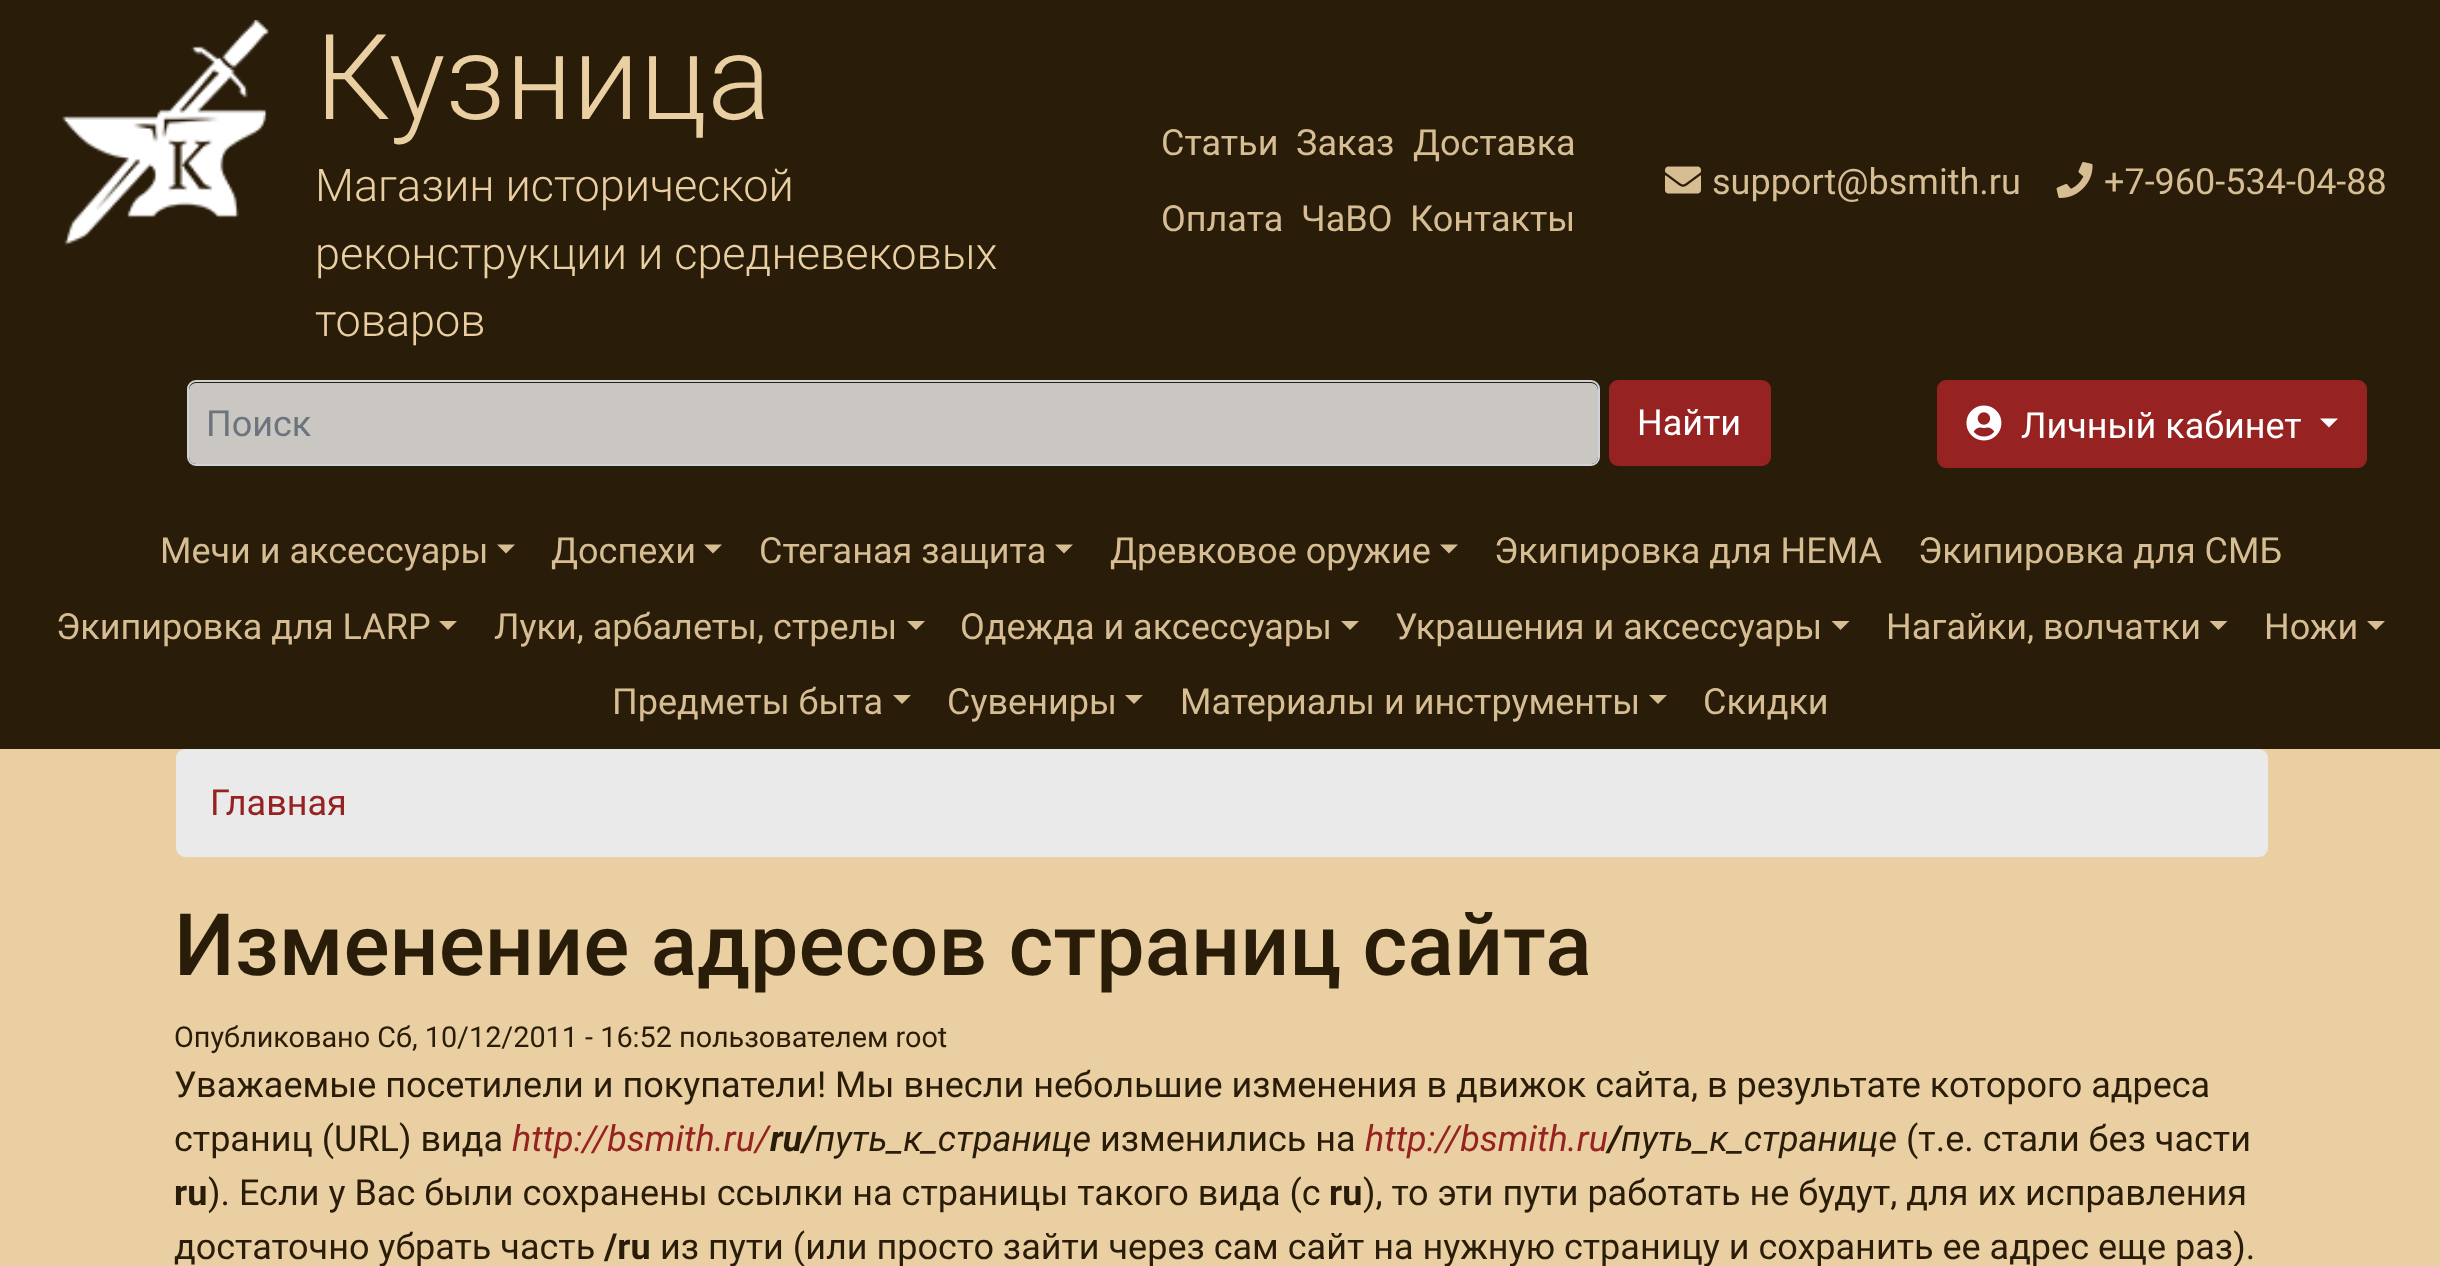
(async () => {
    const canvas = document.querySelector("canvas");
    canvas.width = 2440;
    canvas.height = 1266;
    const context = canvas.getContext("2d");
    context.miterLimit = 4;
    context.fontKerning = "normal";
    function write(s, x, y, font, color) {
        context.font = font;
        context.fillStyle = color;
        context.fillText(s, x, y);
    }
    function block(x, y, w, h, color) {
        context.fillStyle = color;
        context.fillRect(x, y, w, h);
    }
    function card(x, y, w, h, r, color) {
        context.fillStyle = color;
        context.beginPath();
        context.roundRect(x, y, w, h, r);
        context.fill();
    }
    async function photo(src, x, y, w, h) {
        const img = new Image();
        img.src = src;
        await img.decode();
        context.drawImage(img, x, y, w, h);
    }

    block(0, 0, 2440, 1266, "rgb(233, 207, 162)");
    block(0, 0, 2440, 749, "rgb(41, 28, 9)");
    await photo("media/1.png", 62, 20, 207, 226);
    write("Кузница", 315, 119, "300 119px Roboto", "rgb(233, 207, 162)");
    write("Магазин исторической", 315, 201, "300 45px Roboto", "rgb(233, 207, 162)");
    write("реконструкции и средневековых", 315, 269, "300 45px Roboto", "rgb(233, 207, 162)");
    write("товаров", 315, 336, "300 45px Roboto", "rgb(233, 207, 162)");
    write("Статьи", 1161, 155, "36px Roboto", "rgb(214, 189, 147)");
    write("Заказ", 1296, 155, "36px Roboto", "rgb(214, 189, 147)");
    write("Доставка", 1413, 155, "36px Roboto", "rgb(214, 189, 147)");
    write("Оплата", 1161, 231, "36px Roboto", "rgb(214, 189, 147)");
    write("ЧаВО", 1301, 231, "36px Roboto", "rgb(214, 189, 147)");
    write("Контакты", 1410, 231, "36px Roboto", "rgb(214, 189, 147)");
    await photo("media/2.png", 1665, 166, 36, 28);
    write("support@bsmith.ru", 1712, 194, "36px Roboto", "rgb(214, 189, 147)");
    await photo("media/3.png", 2056, 162, 37, 36);
    write("+7-960-534-04-88", 2104, 194, "36px Roboto", "rgb(214, 189, 147)");
    card(189, 383, 1409, 81, 7, "rgb(202, 198, 194)");
    context.beginPath();
    context.roundRect(188, 381, 1411, 84, 8);
    context.strokeStyle = "rgb(206, 212, 218)";
    context.lineWidth = 2;
    context.stroke();
    write("Поиск", 206, 436, "36px Roboto", "rgb(108, 117, 125)");
    context.fillStyle = "rgb(150, 34, 34)";
    context.beginPath();
    context.roundRect(1610, 381, 160, 84, 8);
    context.fill();
    context.strokeStyle = "rgb(150, 34, 34)";
    context.stroke();
    write("Найти", 1637, 435, "36px Roboto", "rgb(255, 255, 255)");
    context.fillStyle = "rgb(150, 34, 34)";
    context.beginPath();
    context.roundRect(1938, 381, 428, 86, 8);
    context.fill();
    context.stroke();
    await photo("media/4.png", 1966, 405, 36, 36);
    write("Личный кабинет", 2021, 438, "36px Roboto", "rgb(255, 255, 255)");
    context.beginPath();
    context.moveTo(2320, 418.5);
    context.lineTo(2338, 418.5);
    context.lineTo(2329, 427.5);
    context.closePath();
    context.fill();
    write("Мечи и аксессуары", 160, 563, "36px Roboto", "rgb(214, 189, 147)");
    context.beginPath();
    context.moveTo(497, 544.5);
    context.lineTo(515, 544.5);
    context.lineTo(506, 553.5);
    context.closePath();
    context.fill();
    write("Доспехи", 551, 563, "36px Roboto", "rgb(214, 189, 147)");
    context.beginPath();
    context.moveTo(704, 544.5);
    context.lineTo(722, 544.5);
    context.lineTo(713, 553.5);
    context.closePath();
    context.fill();
    write("Стеганая защита", 759, 563, "36px Roboto", "rgb(214, 189, 147)");
    context.beginPath();
    context.moveTo(1055, 544.5);
    context.lineTo(1073, 544.5);
    context.lineTo(1064, 553.5);
    context.closePath();
    context.fill();
    write("Древковое оружие", 1110, 563, "36px Roboto", "rgb(214, 189, 147)");
    context.beginPath();
    context.moveTo(1440, 544.5);
    context.lineTo(1458, 544.5);
    context.lineTo(1449, 553.5);
    context.closePath();
    context.fill();
    write("Экипировка для HEMA", 1494, 563, "36px Roboto", "rgb(214, 189, 147)");
    write("Экипировка для СМБ", 1918, 563, "36px Roboto", "rgb(214, 189, 147)");
    write("Экипировка для LARP", 56, 639, "36px Roboto", "rgb(214, 189, 147)");
    context.beginPath();
    context.moveTo(439, 621);
    context.lineTo(457, 621);
    context.lineTo(448, 630);
    context.closePath();
    context.fill();
    write("Луки, арбалеты, стрелы", 494, 639, "36px Roboto", "rgb(214, 189, 147)");
    context.beginPath();
    context.moveTo(907, 621);
    context.lineTo(925, 621);
    context.lineTo(916, 630);
    context.closePath();
    context.fill();
    write("Одежда и аксессуары", 960, 639, "36px Roboto", "rgb(214, 189, 147)");
    context.beginPath();
    context.moveTo(1341, 621);
    context.lineTo(1359, 621);
    context.lineTo(1350, 630);
    context.closePath();
    context.fill();
    write("Украшения и аксессуары", 1395, 639, "36px Roboto", "rgb(214, 189, 147)");
    context.beginPath();
    context.moveTo(1831.5, 621);
    context.lineTo(1849.5, 621);
    context.lineTo(1840.5, 630);
    context.closePath();
    context.fill();
    write("Нагайки, волчатки", 1886, 639, "36px Roboto", "rgb(214, 189, 147)");
    context.beginPath();
    context.moveTo(2209.5, 621);
    context.lineTo(2227.5, 621);
    context.lineTo(2218.5, 630);
    context.closePath();
    context.fill();
    write("Ножи", 2264, 639, "36px Roboto", "rgb(214, 189, 147)");
    context.beginPath();
    context.moveTo(2367, 621);
    context.lineTo(2385, 621);
    context.lineTo(2376, 630);
    context.closePath();
    context.fill();
    write("Предметы быта", 612, 714, "36px Roboto", "rgb(214, 189, 147)");
    context.beginPath();
    context.moveTo(893, 695);
    context.lineTo(911, 695);
    context.lineTo(902, 704);
    context.closePath();
    context.fill();
    write("Сувениры", 947, 714, "36px Roboto", "rgb(214, 189, 147)");
    context.beginPath();
    context.moveTo(1125, 695);
    context.lineTo(1143, 695);
    context.lineTo(1134, 704);
    context.closePath();
    context.fill();
    write("Материалы и инструменты", 1180, 714, "36px Roboto", "rgb(214, 189, 147)");
    context.beginPath();
    context.moveTo(1649, 695);
    context.lineTo(1667, 695);
    context.lineTo(1658, 704);
    context.closePath();
    context.fill();
    write("Скидки", 1703, 714, "36px Roboto", "rgb(214, 189, 147)");
    card(176, 749, 2092, 108, 9, "rgb(234, 234, 234)");
    write("Главная", 210, 815, "36px Roboto", "rgb(150, 34, 34)");
    write("Изменение адресов страниц сайта", 174, 975, "500 86.1px Roboto", "rgb(41, 28, 9)");
    write("Опубликовано Сб, 10/12/2011 - 16:52 пользователем root", 174, 1047, "28.8px Roboto", "rgb(41, 28, 9)");
    write("Уважаемые посетилели и покупатели! Мы внесли небольшие изменения в движок сайта, в результате которого адреса", 174, 1097, "36px Roboto", "rgb(41, 28, 9)");
    write("страниц (URL) вида", 174, 1151, "36px Roboto", "rgb(41, 28, 9)");
    write("http://bsmith.ru/", 512, 1151, "italic 36px Roboto", "rgb(150, 34, 34)");
    write("ru/", 770, 1151, "italic bold 36px Roboto", "rgb(41, 28, 9)");
    write("путь_к_странице", 815, 1151, "italic 36px Roboto", "rgb(41, 28, 9)");
    write("изменились на", 1100, 1151, "36px Roboto", "rgb(41, 28, 9)");
    write("http://bsmith.ru", 1365, 1151, "italic 36px Roboto", "rgb(150, 34, 34)");
    write("/", 1608, 1151, "italic bold 36px Roboto", "rgb(41, 28, 9)");
    write("путь_к_странице", 1621, 1151, "italic 36px Roboto", "rgb(41, 28, 9)");
    write("(т.е. стали без части", 1906, 1151, "36px Roboto", "rgb(41, 28, 9)");
    write("ru", 174, 1205, "bold 36px Roboto", "rgb(41, 28, 9)");
    write("). Если у Вас были сохранены ссылки на страницы такого вида (с", 208, 1205, "36px Roboto", "rgb(41, 28, 9)");
    write("ru", 1329, 1205, "bold 36px Roboto", "rgb(41, 28, 9)");
    write("), то эти пути работать не будут, для их исправления", 1363, 1205, "36px Roboto", "rgb(41, 28, 9)");
    write("достаточно убрать часть", 174, 1259, "36px Roboto", "rgb(41, 28, 9)");
    write("/ru", 604, 1259, "bold 36px Roboto", "rgb(41, 28, 9)");
    write("из пути (или просто зайти через сам сайт на нужную страницу и сохранить ее адрес еще раз).", 660, 1259, "36px Roboto", "rgb(41, 28, 9)");
})();
